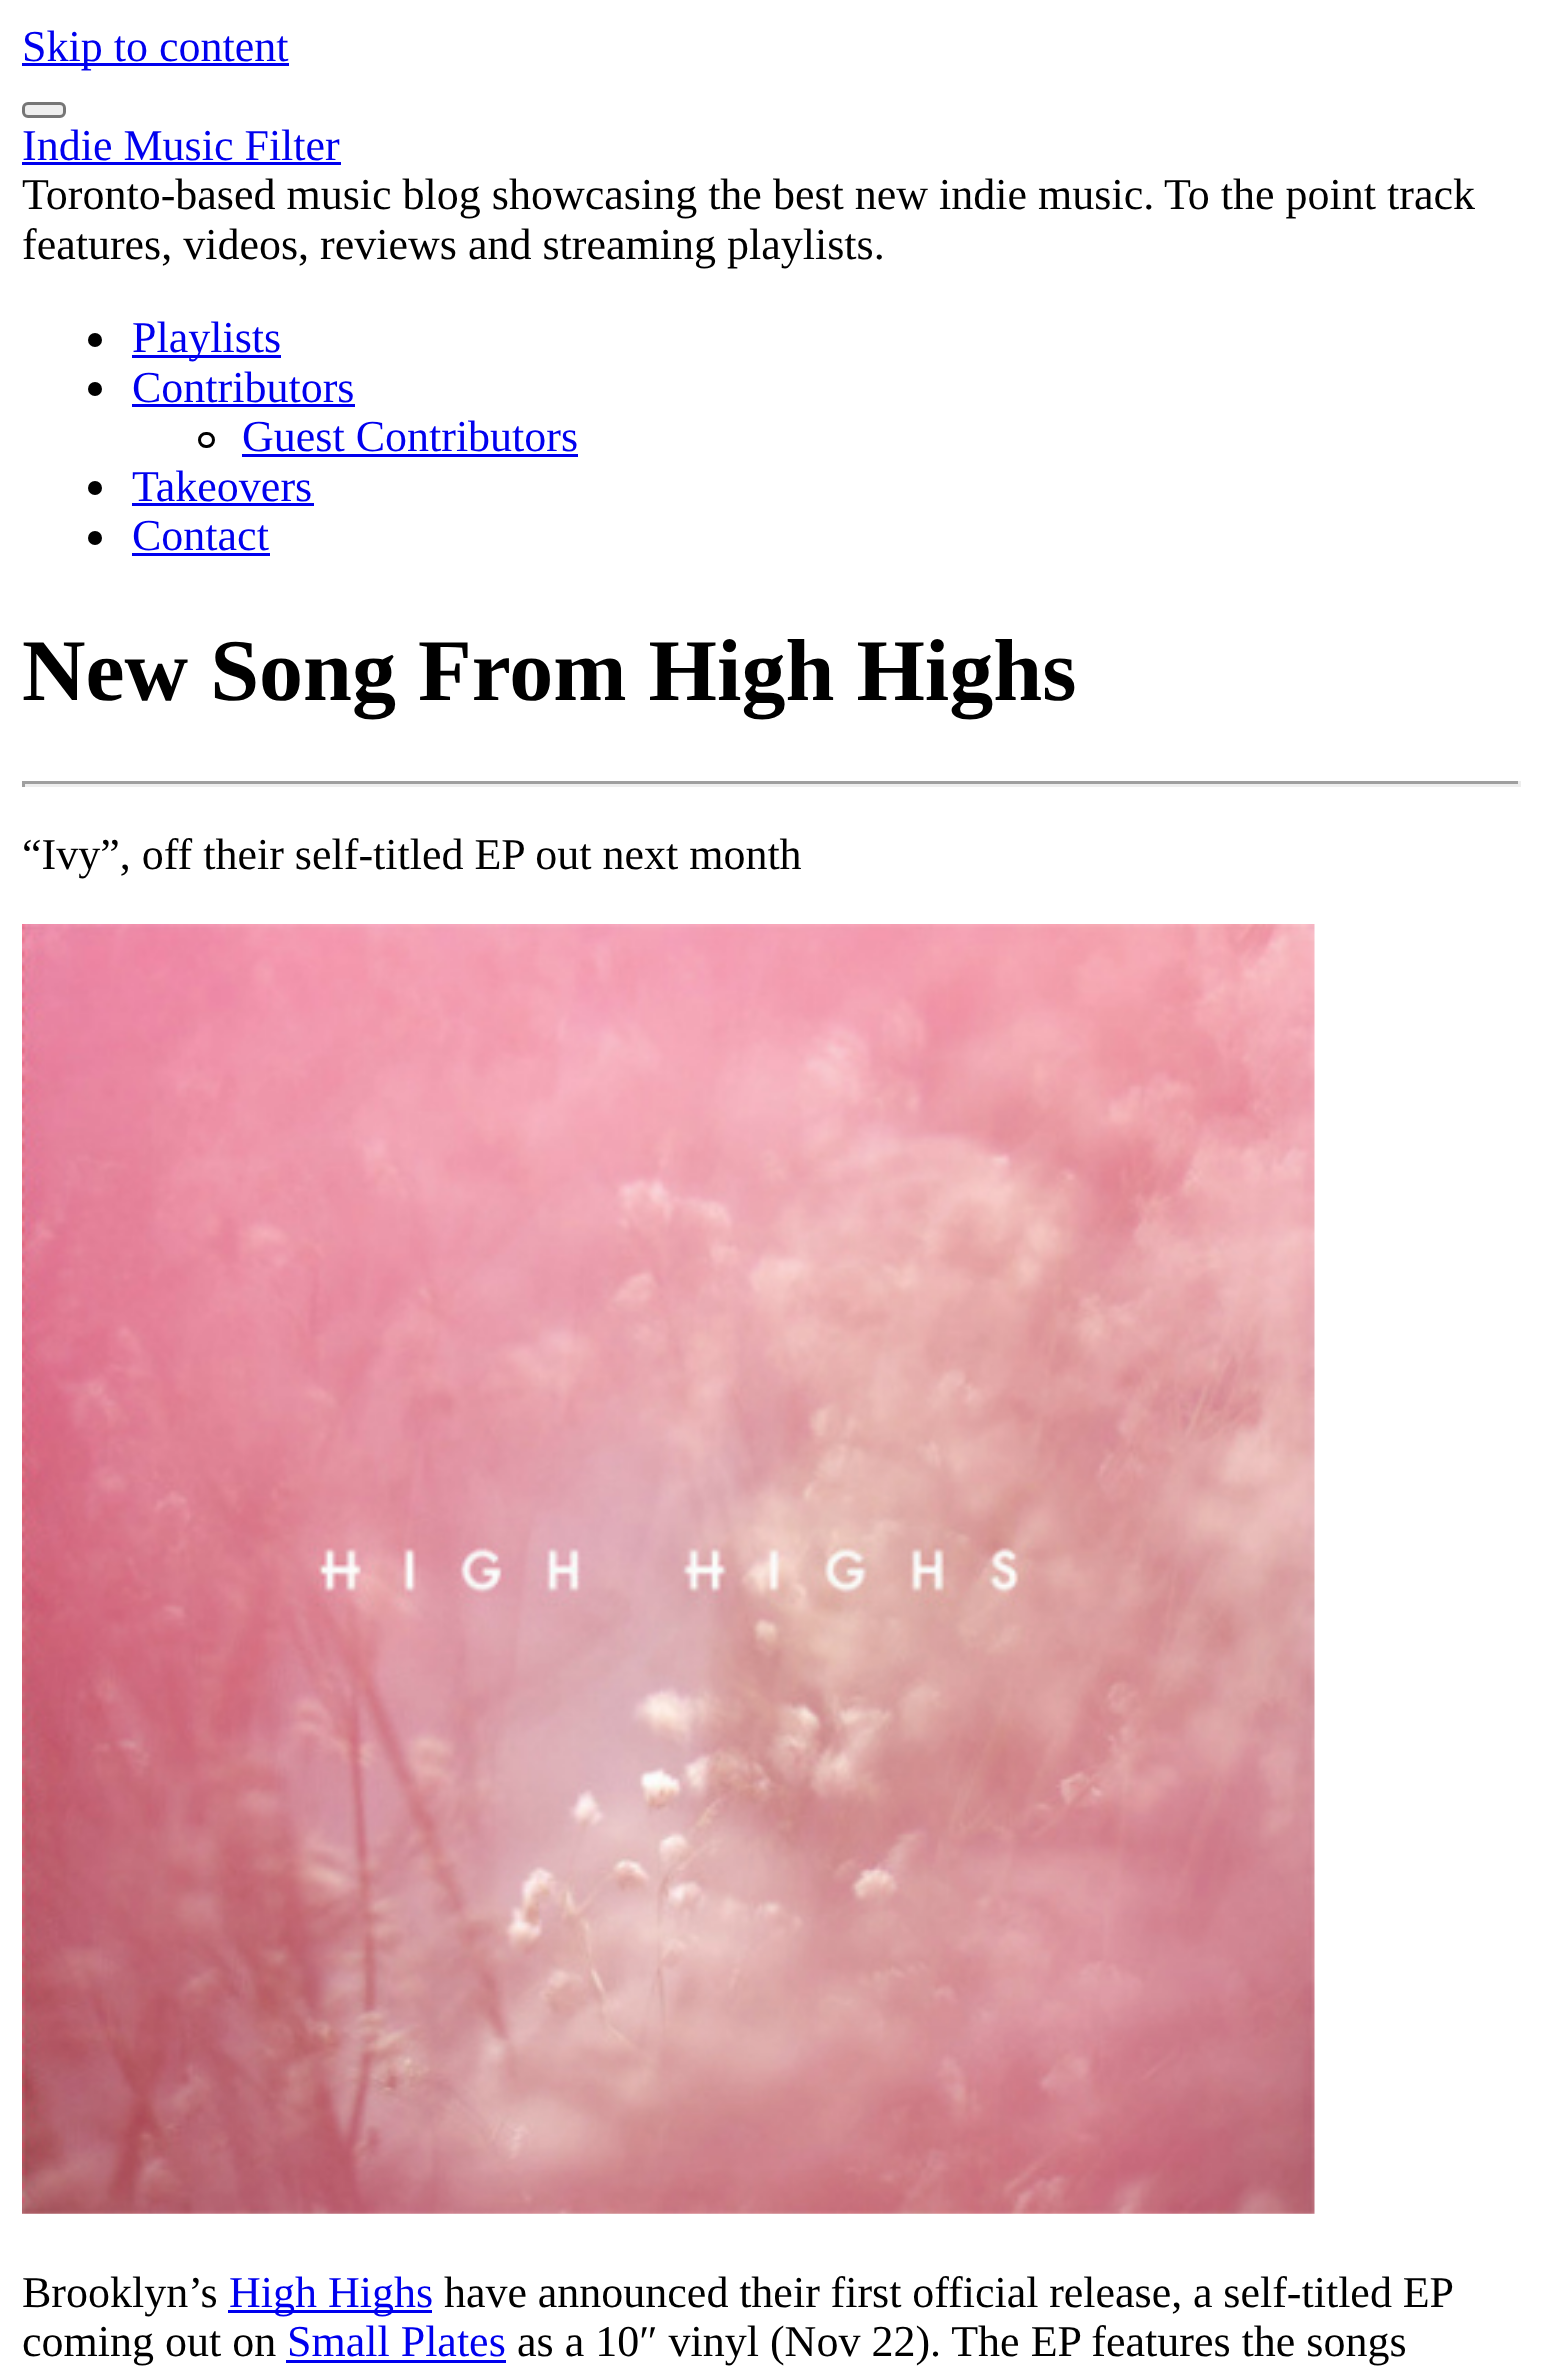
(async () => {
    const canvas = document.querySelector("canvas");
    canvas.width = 1542;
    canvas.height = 2370;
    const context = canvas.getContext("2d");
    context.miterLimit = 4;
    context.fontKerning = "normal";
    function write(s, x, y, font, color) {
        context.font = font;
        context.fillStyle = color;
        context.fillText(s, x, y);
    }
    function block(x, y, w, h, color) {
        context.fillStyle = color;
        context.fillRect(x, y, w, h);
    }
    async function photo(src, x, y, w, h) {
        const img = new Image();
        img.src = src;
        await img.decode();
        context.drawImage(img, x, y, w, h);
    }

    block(0, 0, 1542, 2370, "rgb(255, 255, 255)");
    block(22, 63, 267, 3, "rgb(0, 0, 238)");
    write("Skip to content", 22, 61, "44px Liberation Serif", "rgb(0, 0, 238)");
    context.fillStyle = "rgb(239, 239, 239)";
    context.beginPath();
    context.roundRect(23.5, 103.5, 41, 13, 4.5);
    context.fill();
    context.strokeStyle = "rgb(118, 118, 118)";
    context.lineWidth = 3;
    context.stroke();
    write("Indie Music Filter", 22, 160, "44px Liberation Serif", "rgb(0, 0, 238)");
    block(22, 162, 319, 3, "rgb(0, 0, 238)");
    write("Toronto-based music blog showcasing the best new indie music.", 22, 209, "44px Liberation Serif", "rgb(0, 0, 0)");
    write("To the point track", 1164, 209, "44px Liberation Serif", "rgb(0, 0, 0)");
    write("features, videos, reviews and streaming playlists.", 22, 259, "44px Liberation Serif", "rgb(0, 0, 0)");
    context.beginPath();
    context.arc(95, 340, 7, 0, Math.PI * 2);
    context.fill();
    block(132, 355, 149, 3, "rgb(0, 0, 238)");
    write("Playlists", 132, 352, "44px Liberation Serif", "rgb(0, 0, 238)");
    context.fillStyle = "rgb(0, 0, 0)";
    context.beginPath();
    context.arc(95, 389, 7, 0, Math.PI * 2);
    context.fill();
    write("Contributors", 132, 402, "44px Liberation Serif", "rgb(0, 0, 238)");
    block(132, 404, 223, 3, "rgb(0, 0, 238)");
    context.beginPath();
    context.roundRect(199.5, 433.5, 14, 13, 6.5);
    context.strokeStyle = "rgb(0, 0, 0)";
    context.stroke();
    write("Guest Contributors", 242, 451, "44px Liberation Serif", "rgb(0, 0, 238)");
    block(242, 454, 336, 3, "rgb(0, 0, 238)");
    context.fillStyle = "rgb(0, 0, 0)";
    context.beginPath();
    context.arc(95, 488, 7, 0, Math.PI * 2);
    context.fill();
    write("Takeovers", 132, 501, "44px Liberation Serif", "rgb(0, 0, 238)");
    block(132, 503, 182, 3, "rgb(0, 0, 238)");
    context.fillStyle = "rgb(0, 0, 0)";
    context.beginPath();
    context.arc(95, 538, 7, 0, Math.PI * 2);
    context.fill();
    write("Contact", 132, 550, "44px Liberation Serif", "rgb(0, 0, 238)");
    block(132, 553, 138, 3, "rgb(0, 0, 238)");
    write("New Song From High Highs", 22, 700, "bold 88px Liberation Serif", "rgb(0, 0, 0)");
    block(22, 781, 1499, 3, "rgb(159, 159, 159)");
    block(1518, 781, 3, 6, "rgb(238, 238, 238)");
    block(22, 784, 1499, 3, "rgb(238, 238, 238)");
    block(22, 781, 3, 6, "rgb(159, 159, 159)");
    write("“Ivy”, off their self-titled EP out next month", 22, 869, "44px Liberation Serif", "rgb(0, 0, 0)");
    await photo("media/1.png", 22, 924, 1293, 1290);
    write("Brooklyn’s", 22, 2307, "44px Liberation Serif", "rgb(0, 0, 0)");
    block(228, 2310, 204, 3, "rgb(0, 0, 238)");
    write("High Highs", 229, 2307, "44px Liberation Serif", "rgb(0, 0, 238)");
    context.wordSpacing = "-0.25px";
    write("have announced their first official release, a self-titled EP", 444, 2307, "44px Liberation Serif", "rgb(0, 0, 0)");
    context.wordSpacing = "0px";
    write("coming out on", 22, 2356, "44px Liberation Serif", "rgb(0, 0, 0)");
    write("Small Plates", 287, 2356, "44px Liberation Serif", "rgb(0, 0, 238)");
    block(286, 2360, 220, 3, "rgb(0, 0, 238)");
    write("as a 10″ vinyl (Nov 22). The EP features the songs", 517, 2356, "44px Liberation Serif", "rgb(0, 0, 0)");
})();
